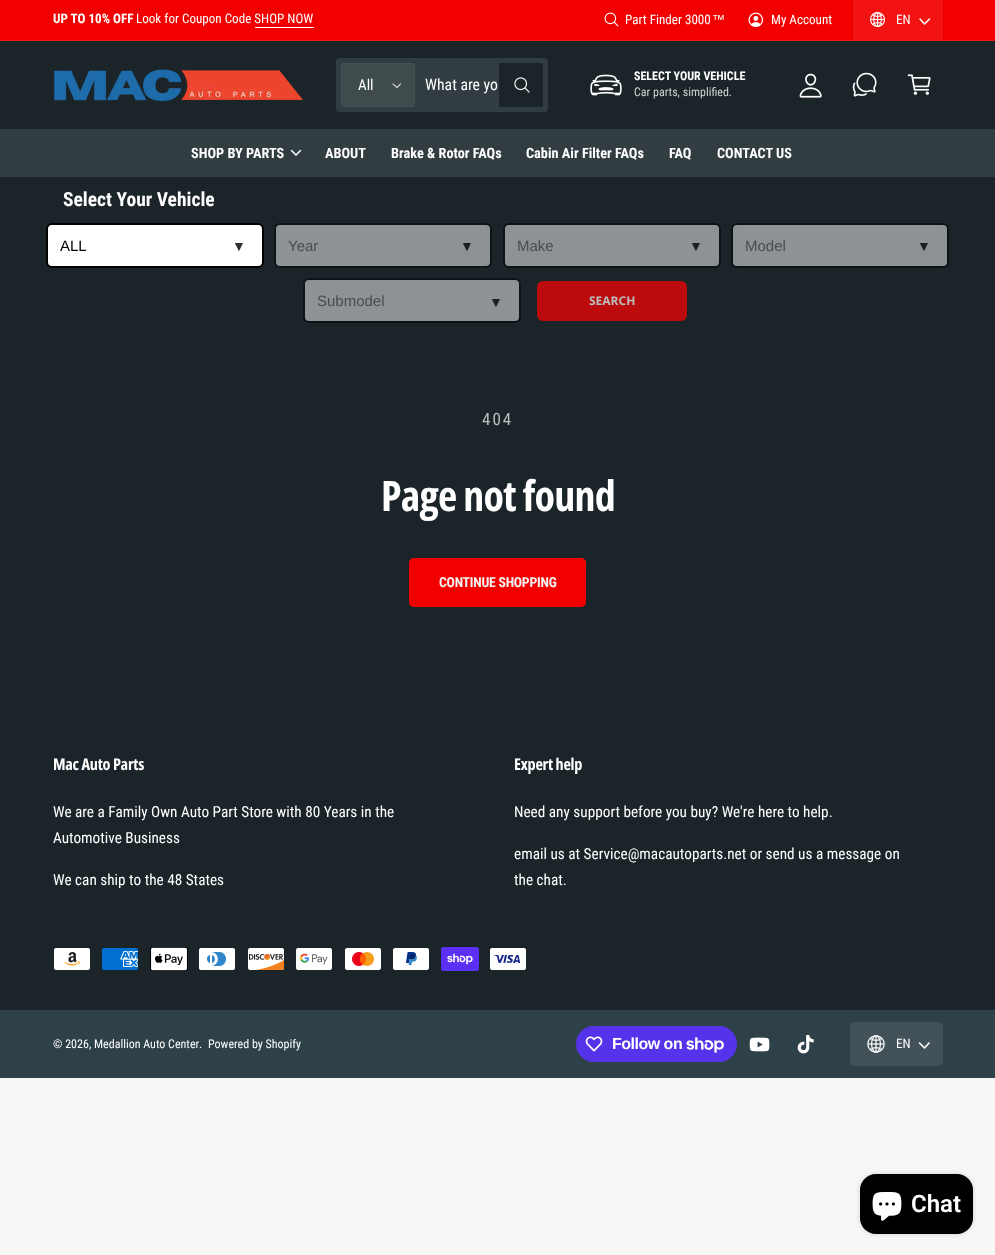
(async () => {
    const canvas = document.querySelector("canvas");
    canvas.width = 995;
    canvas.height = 1255;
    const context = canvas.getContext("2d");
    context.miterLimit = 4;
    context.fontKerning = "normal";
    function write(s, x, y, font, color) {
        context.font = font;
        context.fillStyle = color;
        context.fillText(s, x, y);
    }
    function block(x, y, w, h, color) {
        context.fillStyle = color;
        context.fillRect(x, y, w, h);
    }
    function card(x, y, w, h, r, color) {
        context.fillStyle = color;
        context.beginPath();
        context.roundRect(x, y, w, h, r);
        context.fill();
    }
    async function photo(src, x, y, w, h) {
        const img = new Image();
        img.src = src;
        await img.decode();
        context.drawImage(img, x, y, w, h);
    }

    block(0, 0, 995, 1255, "rgb(249, 247, 246)");
    block(0, 0, 995, 40, "rgb(242, 0, 0)");
    block(0, 40, 995, 1, "rgb(243, 20, 20)");
    write("UP TO 10% OFF", 53, 23, "bold 13.1px Roboto Condensed", "rgb(255, 255, 255)");
    write("Look for Coupon Code SHOP NOW", 136, 23, "13.1px Roboto Condensed", "rgb(255, 255, 255)");
    block(255, 27, 59, 1, "rgb(255, 255, 255)");
    await photo("media/1.png", 604, 12, 15, 15);
    write("Part Finder 3000", 625, 24, "13.1px Roboto Condensed", "rgb(255, 255, 255)");
    write("™", 712, 24, "13.1px Liberation Sans", "rgb(255, 255, 255)");
    await photo("media/2.png", 748, 12, 16, 16);
    write("My Account", 771, 24, "13.1px Roboto Condensed", "rgb(255, 255, 255)");
    block(853, 0, 90, 40, "rgb(243, 18, 18)");
    await photo("media/3.png", 870, 12, 15, 15);
    write("EN", 896, 24, "13.1px Roboto Condensed", "rgb(255, 255, 255)");
    context.beginPath();
    context.moveTo(920, 19);
    context.lineTo(924.5, 24);
    context.lineTo(929.5, 19);
    context.strokeStyle = "rgb(255, 255, 255)";
    context.lineWidth = 1.6;
    context.lineCap = "round";
    context.lineJoin = "round";
    context.stroke();
    block(0, 41, 995, 969, "rgb(27, 37, 41)");
    await photo("media/4.png", 54, 69, 249, 32);
    card(336, 58, 212, 54, 4, "rgb(50, 61, 65)");
    context.fillStyle = "rgb(64, 75, 78)";
    context.beginPath();
    context.roundRect(341.5, 63.5, 73, 43, 1.5);
    context.fill();
    context.strokeStyle = "rgb(70, 80, 83)";
    context.lineWidth = 1;
    context.lineJoin = "miter";
    context.stroke();
    write("All", 358, 90, "15px Roboto Condensed", "rgb(255, 255, 255)");
    context.beginPath();
    context.moveTo(393, 84);
    context.lineTo(397, 87.5);
    context.lineTo(400.5, 84);
    context.strokeStyle = "rgb(198, 201, 202)";
    context.lineWidth = 1.3;
    context.lineJoin = "round";
    context.stroke();
    write("What are yo", 425, 90, "15.75px Roboto Condensed", "rgb(255, 255, 255)");
    card(499, 63, 44, 44, 2, "rgb(27, 37, 41)");
    await photo("media/5.png", 514, 77, 16, 16);
    await photo("media/6.png", 590, 74, 32, 22);
    write("SELECT YOUR VEHICLE", 634, 80, "bold 12px Roboto Condensed", "rgb(255, 255, 255)");
    write("Car parts, simplified.", 634, 96, "12px Roboto Condensed", "rgb(209, 211, 212)");
    await photo("media/7.png", 799, 73, 23, 25);
    await photo("media/8.png", 852, 72, 25, 25);
    await photo("media/9.png", 907, 74, 24, 21);
    block(0, 129, 995, 48, "rgb(50, 61, 65)");
    write("SHOP BY PARTS", 191, 158, "bold 14.25px Roboto Condensed", "rgb(255, 255, 255)");
    context.beginPath();
    context.moveTo(291.5, 150.5);
    context.lineTo(296, 155);
    context.lineTo(300.5, 150.5);
    context.strokeStyle = "rgb(255, 255, 255)";
    context.lineWidth = 1.5;
    context.stroke();
    write("ABOUT", 325, 158, "bold 14.25px Roboto Condensed", "rgb(255, 255, 255)");
    write("Brake & Rotor FAQs", 391, 158, "bold 14.25px Roboto Condensed", "rgb(255, 255, 255)");
    write("Cabin Air Filter FAQs", 526, 158, "bold 14.25px Roboto Condensed", "rgb(255, 255, 255)");
    write("FAQ", 669, 158, "bold 14.25px Roboto Condensed", "rgb(255, 255, 255)");
    write("CONTACT US", 717, 158, "bold 14.25px Roboto Condensed", "rgb(255, 255, 255)");
    write("Select Your Vehicle", 63, 206, "bold 19.5px Roboto Condensed", "rgb(255, 255, 255)");
    context.beginPath();
    context.roundRect(47, 224, 216, 43, 5);
    context.fill();
    context.strokeStyle = "rgb(0, 0, 0)";
    context.lineWidth = 2;
    context.lineJoin = "miter";
    context.stroke();
    write("ALL", 60, 251, "15px Liberation Sans", "rgb(0, 0, 0)");
    write("▼", 232, 251, "14px Liberation Sans", "rgb(51, 51, 51)");
    context.fillStyle = "rgb(141, 146, 148)";
    context.beginPath();
    context.roundRect(275, 224, 216, 43, 5);
    context.fill();
    context.strokeStyle = "rgb(14, 19, 21)";
    context.stroke();
    write("Year", 288, 251, "15px Liberation Sans", "rgb(72, 77, 79)");
    write("▼", 460, 251, "14px Liberation Sans", "rgb(28, 29, 30)");
    context.fillStyle = "rgb(141, 146, 148)";
    context.beginPath();
    context.roundRect(504, 224, 216, 43, 5);
    context.fill();
    context.stroke();
    write("Make", 517, 251, "15px Liberation Sans", "rgb(72, 77, 79)");
    write("▼", 689, 251, "14px Liberation Sans", "rgb(28, 29, 30)");
    context.fillStyle = "rgb(141, 146, 148)";
    context.beginPath();
    context.roundRect(732, 224, 216, 43, 5);
    context.fill();
    context.stroke();
    write("Model", 745, 251, "15px Liberation Sans", "rgb(72, 77, 79)");
    write("▼", 917, 251, "14px Liberation Sans", "rgb(28, 29, 30)");
    context.fillStyle = "rgb(141, 146, 148)";
    context.beginPath();
    context.roundRect(304, 279, 216, 43, 5);
    context.fill();
    context.stroke();
    write("Submodel", 317, 306, "15px Liberation Sans", "rgb(72, 77, 79)");
    write("▼", 489, 307, "14px Liberation Sans", "rgb(28, 29, 30)");
    card(537, 281, 150, 40, 6, "rgb(187, 11, 12)");
    write("SEARCH", 589, 305, "bold 12px Open Sans", "rgb(187, 190, 191)");
    context.letterSpacing = "2px";
    write("404", 482, 425, "17px Roboto Condensed", "rgb(187, 190, 191)");
    context.letterSpacing = "-0.75px";
    write("Page not found", 381, 511, "bold 42px Open Sans Condensed", "rgb(255, 255, 255)");
    card(409, 558, 177, 49, 5, "rgb(242, 0, 0)");
    context.beginPath();
    context.roundRect(409.5, 558.5, 176, 48, 4.5);
    context.strokeStyle = "rgb(242, 0, 0)";
    context.lineWidth = 1;
    context.stroke();
    context.letterSpacing = "-0.25px";
    write("CONTINUE SHOPPING", 439, 587, "bold 13.75px Roboto Condensed", "rgb(243, 243, 243)");
    write("Mac Auto Parts", 53, 770, "bold 16.25px Open Sans Condensed", "rgb(255, 255, 255)");
    context.letterSpacing = "0px";
    write("We are a Family Own Auto Part Store with 80 Years in the", 53, 817, "15.25px Roboto Condensed", "rgb(255, 255, 255)");
    write("Automotive Business", 53, 843, "15.25px Roboto Condensed", "rgb(255, 255, 255)");
    write("We can ship to the 48 States", 53, 885, "15.25px Roboto Condensed", "rgb(255, 255, 255)");
    context.letterSpacing = "-0.25px";
    write("Expert help", 514, 770, "bold 16.25px Open Sans Condensed", "rgb(255, 255, 255)");
    context.letterSpacing = "0px";
    write("Need any support before you buy? We're here to help.", 514, 817, "15.25px Roboto Condensed", "rgb(255, 255, 255)");
    write("email us at Service@macautoparts.net or send us a message on", 514, 859, "15.25px Roboto Condensed", "rgb(255, 255, 255)");
    write("the chat.", 514, 885, "15.25px Roboto Condensed", "rgb(255, 255, 255)");
    await photo("media/10.png", 54, 948, 36, 22);
    await photo("media/11.png", 102, 948, 36, 22);
    await photo("media/12.png", 150, 947, 38, 24);
    await photo("media/13.png", 199, 948, 36, 22);
    await photo("media/14.png", 248, 948, 36, 22);
    await photo("media/15.png", 296, 948, 36, 22);
    await photo("media/16.png", 345, 948, 36, 22);
    await photo("media/17.png", 393, 948, 36, 22);
    await photo("media/18.png", 441, 947, 38, 24);
    await photo("media/19.png", 490, 948, 36, 22);
    block(0, 1010, 995, 68, "rgb(47, 65, 72)");
    write("© 2026,", 53, 1048, "12px Roboto Condensed", "rgb(255, 255, 255)");
    write("Medallion Auto Center", 94, 1048, "12px Roboto Condensed", "rgb(255, 255, 255)");
    write(".", 199, 1048, "12px Roboto Condensed", "rgb(255, 255, 255)");
    write("Powered by Shopify", 208, 1048, "12px Roboto Condensed", "rgb(255, 255, 255)");
    card(576, 1026, 161, 36, 18, "rgb(84, 51, 235)");
    await photo("media/20.png", 585, 1036, 18, 16);
    context.letterSpacing = "-0.5px";
    write("Follow on", 612, 1049, "bold 16px Liberation Sans", "rgb(255, 255, 255)");
    await photo("media/21.png", 686, 1037, 38, 16);
    await photo("media/22.png", 749, 1037, 21, 15);
    await photo("media/23.png", 797, 1035, 17, 19);
    card(850, 1022, 93, 44, 5, "rgb(66, 82, 88)");
    await photo("media/24.png", 867, 1035, 18, 18);
    context.letterSpacing = "0px";
    write("EN", 896, 1048, "13.1px Roboto Condensed", "rgb(255, 255, 255)");
    context.beginPath();
    context.moveTo(919.5, 1043);
    context.lineTo(924.5, 1048);
    context.lineTo(929, 1043);
    context.strokeStyle = "rgb(255, 255, 255)";
    context.lineWidth = 1.6;
    context.lineJoin = "round";
    context.stroke();
    context.fillStyle = "rgba(0, 0, 0, 0.15)";
    context.filter = "blur(2.5px)";
    context.beginPath();
    context.roundRect(860, 1174, 113, 60, 16);
    context.fill();
    context.filter = "none";
    card(860, 1174, 113, 60, 16, "rgb(0, 0, 0)");
    await photo("media/25.png", 872, 1192, 30, 29);
    write("Chat", 911, 1212, "600 24px Roboto", "rgb(255, 255, 255)");
})();
